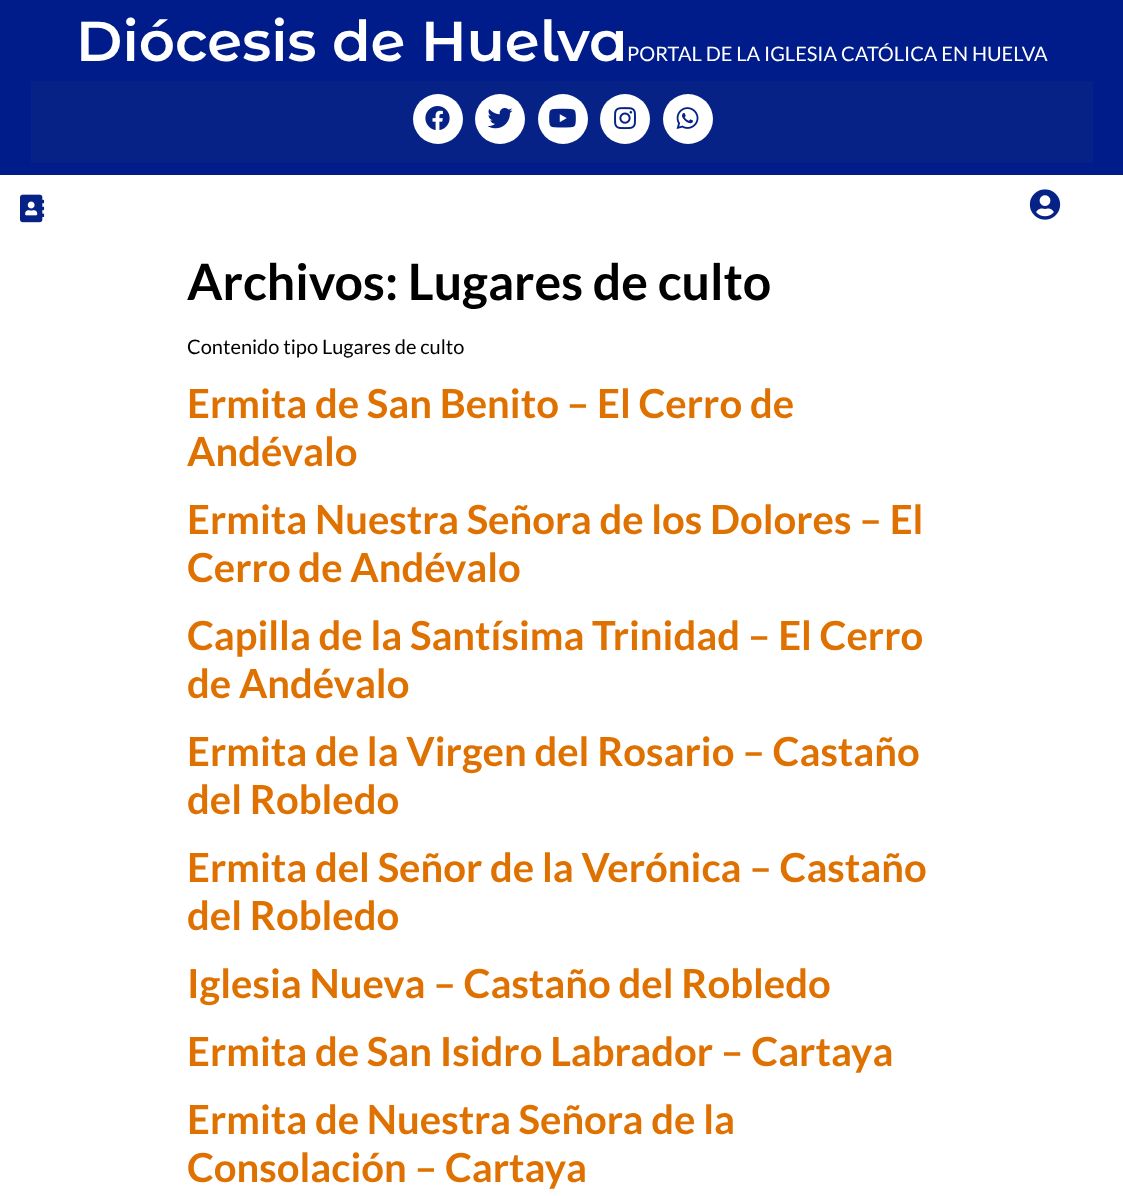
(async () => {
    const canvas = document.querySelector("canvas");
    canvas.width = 1123;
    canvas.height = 1196;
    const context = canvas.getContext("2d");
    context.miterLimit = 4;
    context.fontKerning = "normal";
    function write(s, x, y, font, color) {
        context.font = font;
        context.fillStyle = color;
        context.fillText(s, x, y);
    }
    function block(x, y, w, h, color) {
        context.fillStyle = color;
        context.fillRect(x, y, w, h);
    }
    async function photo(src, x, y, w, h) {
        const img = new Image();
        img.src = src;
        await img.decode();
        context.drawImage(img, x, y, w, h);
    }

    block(0, 0, 1123, 1196, "rgb(255, 255, 255)");
    block(0, 0, 1123, 175, "rgb(0, 28, 138)");
    write("Diócesis de Huelva", 76, 61, "600 56.25px Montserrat Alternates", "rgb(255, 255, 255)");
    write("PORTAL DE LA IGLESIA CATÓLICA EN HUELVA", 627, 61, "20px Lato", "rgb(255, 255, 255)");
    block(31, 81, 1062, 82, "rgb(6, 34, 134)");
    context.fillStyle = "rgb(255, 255, 255)";
    context.beginPath();
    context.arc(438, 119, 25, 0, Math.PI * 2);
    context.fill();
    await photo("media/1.png", 425, 106, 25, 24);
    context.beginPath();
    context.arc(500, 119, 25, 0, Math.PI * 2);
    context.fill();
    await photo("media/2.png", 487, 108, 26, 21);
    context.beginPath();
    context.arc(563, 119, 25, 0, Math.PI * 2);
    context.fill();
    await photo("media/3.png", 549, 108, 27, 20);
    context.beginPath();
    context.arc(625, 119, 25, 0, Math.PI * 2);
    context.fill();
    await photo("media/4.png", 614, 107, 22, 23);
    context.beginPath();
    context.arc(688, 119, 25, 0, Math.PI * 2);
    context.fill();
    await photo("media/5.png", 676, 107, 23, 22);
    await photo("media/6.png", 20, 194, 25, 29);
    await photo("media/7.png", 1029, 189, 32, 31);
    write("Archivos: Lugares de culto", 187, 300, "bold 50px Lato", "rgb(0, 0, 0)");
    write("Contenido tipo Lugares de culto", 187, 354, "20px Lato", "rgb(0, 0, 0)");
    write("Ermita de San Benito – El Cerro de", 187, 418, "bold 40px Lato", "rgb(223, 113, 0)");
    write("Andévalo", 187, 466, "bold 40px Lato", "rgb(223, 113, 0)");
    write("Ermita Nuestra Señora de los Dolores – El", 187, 534, "bold 40px Lato", "rgb(223, 113, 0)");
    write("Cerro de Andévalo", 187, 582, "bold 40px Lato", "rgb(223, 113, 0)");
    write("Capilla de la Santísima Trinidad – El Cerro", 187, 650, "bold 40px Lato", "rgb(223, 113, 0)");
    write("de Andévalo", 187, 698, "bold 40px Lato", "rgb(223, 113, 0)");
    write("Ermita de la Virgen del Rosario – Castaño", 187, 766, "bold 40px Lato", "rgb(223, 113, 0)");
    write("del Robledo", 187, 814, "bold 40px Lato", "rgb(223, 113, 0)");
    write("Ermita del Señor de la Verónica – Castaño", 187, 882, "bold 40px Lato", "rgb(223, 113, 0)");
    write("del Robledo", 187, 930, "bold 40px Lato", "rgb(223, 113, 0)");
    write("Iglesia Nueva – Castaño del Robledo", 187, 998, "bold 40px Lato", "rgb(223, 113, 0)");
    write("Ermita de San Isidro Labrador – Cartaya", 187, 1066, "bold 40px Lato", "rgb(223, 113, 0)");
    write("Ermita de Nuestra Señora de la", 187, 1134, "bold 40px Lato", "rgb(223, 113, 0)");
    write("Consolación – Cartaya", 187, 1182, "bold 40px Lato", "rgb(223, 113, 0)");
})();
